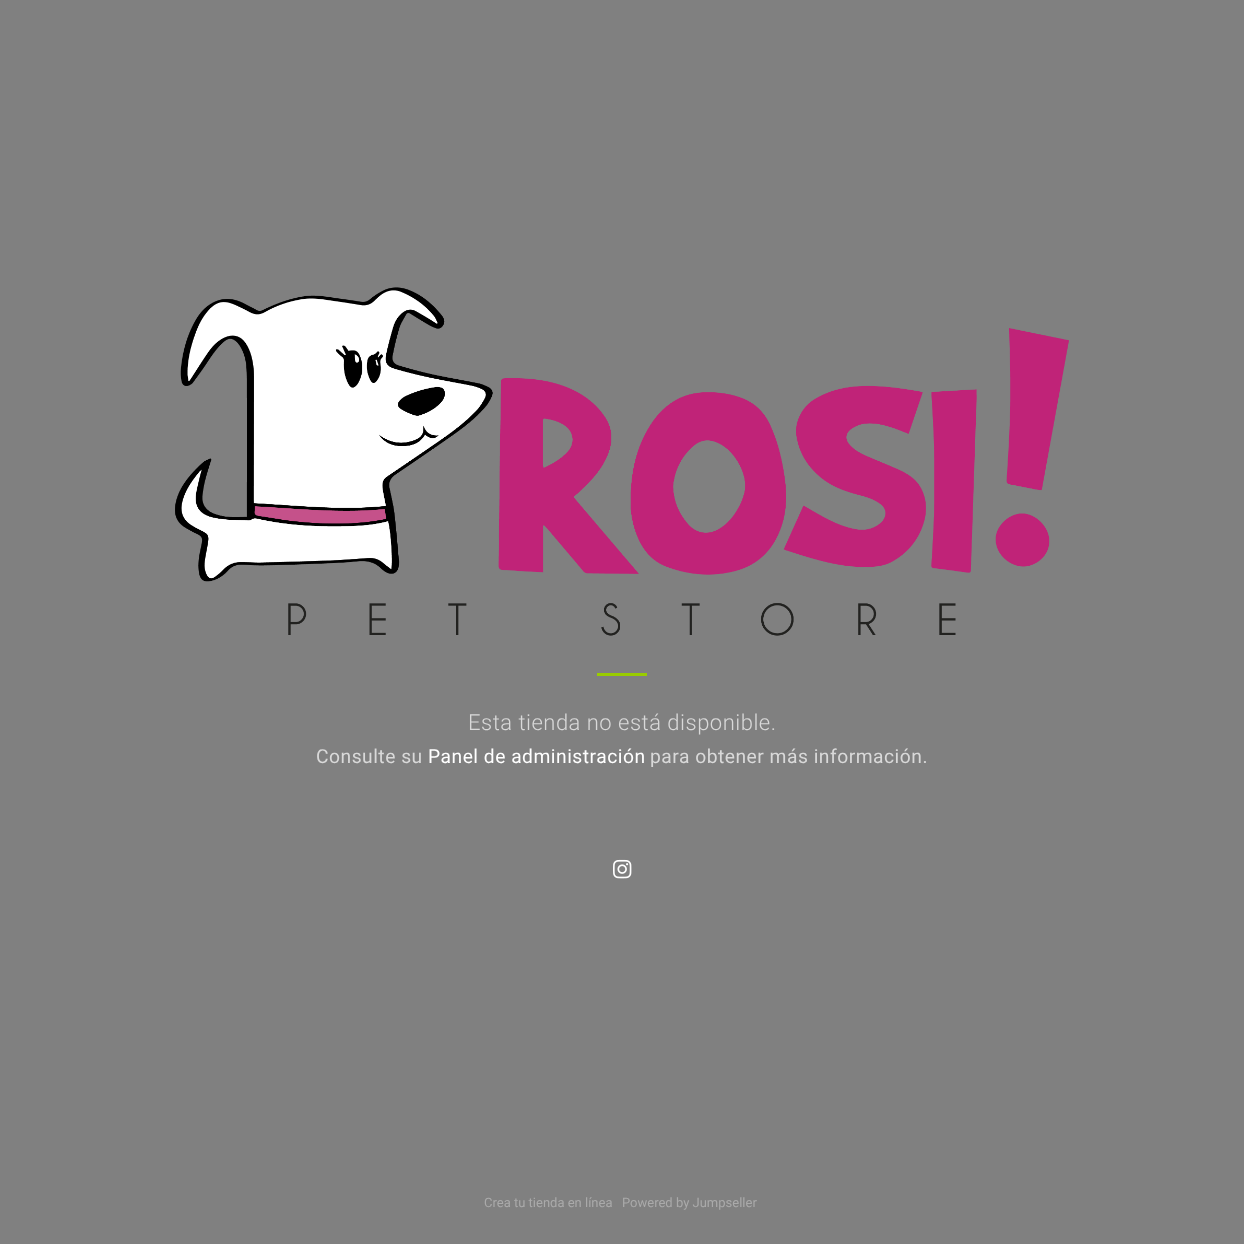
(async () => {
    const canvas = document.querySelector("canvas");
    canvas.width = 1244;
    canvas.height = 1244;
    const context = canvas.getContext("2d");
    context.miterLimit = 4;
    context.fontKerning = "normal";
    function write(s, x, y, font, color) {
        context.font = font;
        context.fillStyle = color;
        context.fillText(s, x, y);
    }
    function block(x, y, w, h, color) {
        context.fillStyle = color;
        context.fillRect(x, y, w, h);
    }
    async function photo(src, x, y, w, h) {
        const img = new Image();
        img.src = src;
        await img.decode();
        context.drawImage(img, x, y, w, h);
    }

    block(0, 0, 1244, 1244, "rgb(128, 128, 128)");
    await photo("media/1.png", 175, 287, 894, 349);
    block(597, 673, 50, 3, "rgb(153, 204, 0)");
    context.letterSpacing = "0.5px";
    write("Esta tienda no está disponible.", 468, 730, "300 22px Roboto", "rgb(217, 217, 217)");
    write("Consulte su", 316, 763, "19.25px Roboto", "rgb(217, 217, 217)");
    write("Panel de administración", 428, 763, "19.25px Roboto", "rgb(255, 255, 255)");
    write("para obtener más información.", 650, 763, "19.25px Roboto", "rgb(217, 217, 217)");
    await photo("media/2.png", 613, 859, 19, 20);
    context.letterSpacing = "0px";
    write("Crea tu tienda en línea", 484, 1207, "13px Roboto", "rgb(170, 170, 170)");
    write("Powered by Jumpseller", 622, 1207, "13px Roboto", "rgb(170, 170, 170)");
})();
